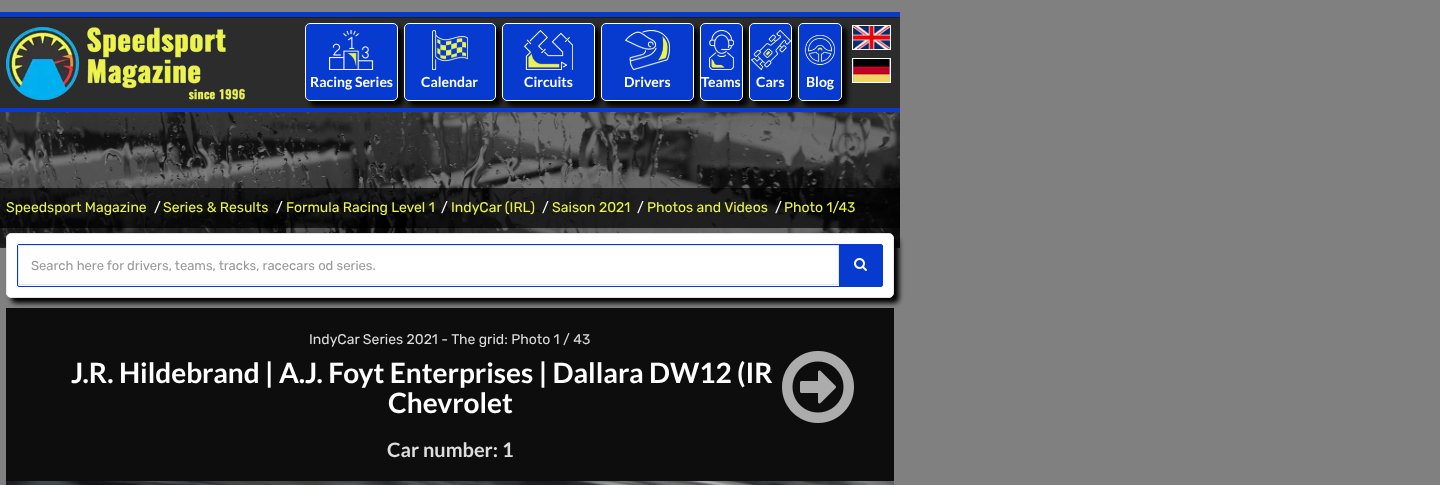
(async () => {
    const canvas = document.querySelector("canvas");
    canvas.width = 1440;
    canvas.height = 485;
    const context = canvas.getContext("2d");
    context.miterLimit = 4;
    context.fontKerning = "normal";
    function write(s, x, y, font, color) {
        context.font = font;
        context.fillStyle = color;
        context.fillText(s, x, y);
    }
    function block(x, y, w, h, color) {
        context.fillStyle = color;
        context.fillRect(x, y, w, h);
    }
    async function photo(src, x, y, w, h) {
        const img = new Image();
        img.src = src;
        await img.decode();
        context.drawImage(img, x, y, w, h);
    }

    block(0, 0, 1440, 485, "rgb(128, 128, 128)");
    block(0, 12, 900, 5, "rgb(7, 59, 207)");
    block(0, 17, 900, 1, "rgb(29, 29, 29)");
    block(0, 18, 900, 90, "rgb(44, 44, 44)");
    await photo("media/1.png", 6, 27, 239, 73);
    await photo("media/11.png", 0, 112, 900, 136);
    context.fillStyle = "rgb(0, 0, 0)";
    context.filter = "blur(2.5px)";
    context.beginPath();
    context.roundRect(310, 28, 93, 78, 5);
    context.fill();
    context.filter = "none";
    context.fillStyle = "rgb(7, 59, 207)";
    context.beginPath();
    context.roundRect(305.5, 23.5, 92, 77, 4.5);
    context.fill();
    context.strokeStyle = "rgb(255, 255, 255)";
    context.stroke();
    await photo("media/2.png", 329, 30, 45, 40);
    write("Racing Series", 310, 87, "bold 14px Lato", "rgb(255, 255, 255)");
    context.fillStyle = "rgb(0, 0, 0)";
    context.filter = "blur(2.5px)";
    context.beginPath();
    context.roundRect(409, 28, 92, 78, 5);
    context.fill();
    context.filter = "none";
    context.fillStyle = "rgb(7, 59, 207)";
    context.beginPath();
    context.roundRect(404.5, 23.5, 91, 77, 4.5);
    context.fill();
    context.stroke();
    await photo("media/3.png", 432, 30, 36, 40);
    write("Calendar", 421, 87, "bold 14px Lato", "rgb(255, 255, 255)");
    context.fillStyle = "rgb(0, 0, 0)";
    context.filter = "blur(2.5px)";
    context.beginPath();
    context.roundRect(507, 28, 93, 78, 5);
    context.fill();
    context.filter = "none";
    context.fillStyle = "rgb(7, 59, 207)";
    context.beginPath();
    context.roundRect(502.5, 23.5, 92, 77, 4.5);
    context.fill();
    context.stroke();
    await photo("media/4.png", 523, 30, 50, 40);
    write("Circuits", 524, 87, "bold 14px Lato", "rgb(255, 255, 255)");
    context.fillStyle = "rgb(0, 0, 0)";
    context.filter = "blur(2.5px)";
    context.beginPath();
    context.roundRect(606, 28, 93, 78, 5);
    context.fill();
    context.filter = "none";
    context.fillStyle = "rgb(7, 59, 207)";
    context.beginPath();
    context.roundRect(601.5, 23.5, 92, 77, 4.5);
    context.fill();
    context.stroke();
    await photo("media/5.png", 624, 30, 46, 40);
    write("Drivers", 624, 87, "bold 14px Lato", "rgb(255, 255, 255)");
    context.fillStyle = "rgb(0, 0, 0)";
    context.filter = "blur(2.5px)";
    context.beginPath();
    context.roundRect(705, 28, 43, 78, 5);
    context.fill();
    context.filter = "none";
    context.fillStyle = "rgb(7, 59, 207)";
    context.beginPath();
    context.roundRect(700.5, 23.5, 42, 77, 4.5);
    context.fill();
    context.stroke();
    await photo("media/6.png", 709, 30, 25, 40);
    write("Teams", 701, 87, "bold 14px Lato", "rgb(255, 255, 255)");
    context.fillStyle = "rgb(0, 0, 0)";
    context.filter = "blur(2.5px)";
    context.beginPath();
    context.roundRect(754, 28, 43, 78, 5);
    context.fill();
    context.filter = "none";
    context.fillStyle = "rgb(7, 59, 207)";
    context.beginPath();
    context.roundRect(749.5, 23.5, 42, 77, 4.5);
    context.fill();
    context.stroke();
    await photo("media/7.png", 750, 30, 41, 40);
    write("Cars", 756, 87, "bold 14px Lato", "rgb(255, 255, 255)");
    context.fillStyle = "rgb(0, 0, 0)";
    context.filter = "blur(2.5px)";
    context.beginPath();
    context.roundRect(803, 28, 44, 78, 5);
    context.fill();
    context.filter = "none";
    context.fillStyle = "rgb(7, 59, 207)";
    context.beginPath();
    context.roundRect(798.5, 23.5, 43, 77, 4.5);
    context.fill();
    context.stroke();
    await photo("media/8.png", 804, 35, 31, 30);
    write("Blog", 806, 87, "bold 14px Lato", "rgb(255, 255, 255)");
    context.strokeRect(852.5, 25.5, 38, 24);
    await photo("media/9.png", 853, 26, 37, 23);
    context.strokeRect(852.5, 58.5, 38, 24);
    await photo("media/10.png", 853, 59, 37, 23);
    block(0, 108, 900, 4, "rgb(7, 59, 207)");
    block(0, 188, 900, 40, "rgba(0, 0, 0, 0.7)");
    write("Speedsport Magazine", 6, 212, "300 14px Rubik", "rgb(236, 244, 71)");
    write("/", 154, 212, "300 14px Rubik", "rgb(255, 255, 255)");
    write("Series & Results", 163, 212, "300 14px Rubik", "rgb(236, 244, 71)");
    write("/", 276, 212, "300 14px Rubik", "rgb(255, 255, 255)");
    write("Formula Racing Level 1", 286, 212, "300 14px Rubik", "rgb(236, 244, 71)");
    write("/", 441, 212, "300 14px Rubik", "rgb(255, 255, 255)");
    write("IndyCar (IRL)", 451, 212, "300 14px Rubik", "rgb(236, 244, 71)");
    write("/", 542, 212, "300 14px Rubik", "rgb(255, 255, 255)");
    write("Saison 2021", 552, 212, "300 14px Rubik", "rgb(236, 244, 71)");
    write("/", 637, 212, "300 14px Rubik", "rgb(255, 255, 255)");
    write("Photos and Videos", 647, 212, "300 14px Rubik", "rgb(236, 244, 71)");
    write("/", 775, 212, "300 14px Rubik", "rgb(255, 255, 255)");
    write("Photo 1/43", 784, 212, "300 14px Rubik", "rgb(236, 244, 71)");
    context.fillStyle = "rgb(0, 0, 0)";
    context.filter = "blur(2.5px)";
    context.beginPath();
    context.roundRect(11, 238, 888, 65, 5);
    context.fill();
    context.filter = "none";
    context.fillStyle = "rgb(255, 255, 255)";
    context.beginPath();
    context.roundRect(6.5, 233.5, 887, 64, 4.5);
    context.fill();
    context.strokeStyle = "rgb(229, 229, 229)";
    context.stroke();
    context.beginPath();
    context.roundRect(17.5, 244.5, 865, 42, 1.5);
    context.strokeStyle = "rgb(7, 59, 207)";
    context.stroke();
    context.strokeStyle = "rgb(225, 230, 235)";
    context.strokeRect(18.5, 245.5, 820, 39);
    write("Search here for drivers, teams, tracks, racecars od series.", 31, 270, "300 13px Rubik", "rgb(153, 153, 153)");
    block(839, 245, 43, 41, "rgb(7, 59, 207)");
    await photo("media/12.png", 854, 258, 13, 13);
    block(6, 308, 888, 173, "rgb(13, 13, 13)");
    write("IndyCar Series 2021 - The grid: Photo 1 / 43", 309, 344, "300 14px Rubik", "rgb(221, 221, 221)");
    write("J.R. Hildebrand | A.J. Foyt Enterprises | Dallara DW12 (IR", 71, 383, "bold 28px Lato", "rgb(255, 255, 255)");
    write("Chevrolet", 388, 413, "bold 28px Lato", "rgb(255, 255, 255)");
    await photo("media/13.png", 782, 351, 72, 72);
    write("Car number: 1", 387, 457, "bold 20px Lato", "rgb(221, 221, 221)");
    await photo("media/14.png", 6, 481, 888, 4);
})();
